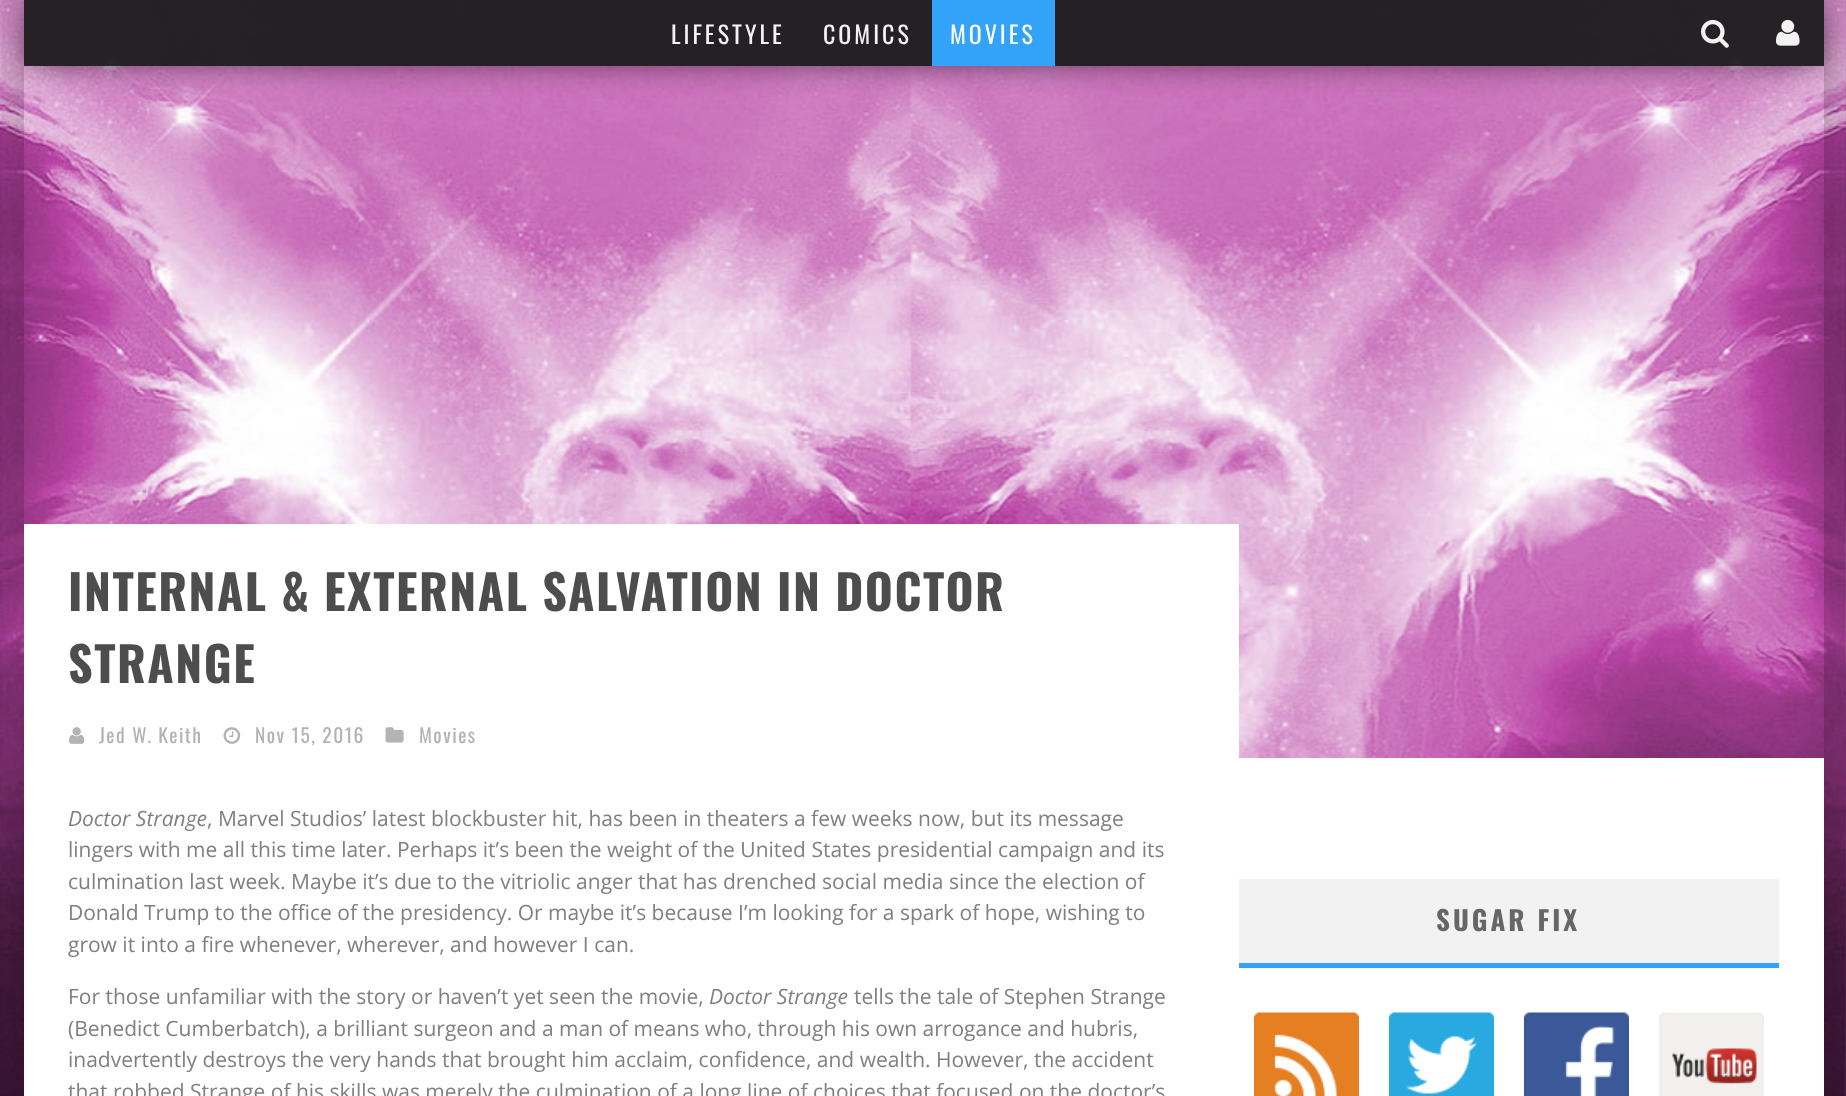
(async () => {
    const canvas = document.querySelector("canvas");
    canvas.width = 1846;
    canvas.height = 1096;
    const context = canvas.getContext("2d");
    context.miterLimit = 4;
    context.fontKerning = "normal";
    function write(s, x, y, font, color) {
        context.font = font;
        context.fillStyle = color;
        context.fillText(s, x, y);
    }
    function block(x, y, w, h, color) {
        context.fillStyle = color;
        context.fillRect(x, y, w, h);
    }
    async function photo(src, x, y, w, h) {
        const img = new Image();
        img.src = src;
        await img.decode();
        context.drawImage(img, x, y, w, h);
    }

    block(0, 0, 1846, 1096, "rgb(255, 255, 255)");
    await photo("media/1.png", 1845, 0, 1, 1096);
    await photo("media/2.png", 0, 0, 1846, 1096);
    context.save();
    context.beginPath();
    context.moveTo(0, 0);
    context.lineTo(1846, 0);
    context.lineTo(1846, 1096);
    context.lineTo(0, 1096);
    context.closePath();
    context.moveTo(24, -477);
    context.lineTo(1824, -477);
    context.lineTo(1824, 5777);
    context.lineTo(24, 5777);
    context.closePath();
    context.clip("evenodd");
    context.fillStyle = "rgba(0, 0, 0, 0.15)";
    context.filter = "blur(22.5px)";
    context.beginPath();
    context.rect(9, -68, 1800, 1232);
    context.fill();
    context.filter = "none";
    context.filter = "blur(22.5px)";
    context.beginPath();
    context.rect(39, -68, 1800, 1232);
    context.fill();
    context.filter = "none";
    context.restore();
    context.save();
    context.beginPath();
    context.moveTo(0, 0);
    context.lineTo(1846, 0);
    context.lineTo(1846, 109);
    context.lineTo(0, 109);
    context.closePath();
    context.moveTo(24, 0);
    context.lineTo(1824, 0);
    context.lineTo(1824, 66);
    context.lineTo(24, 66);
    context.closePath();
    context.clip("evenodd");
    context.fillStyle = "rgba(0, 0, 0, 0.6)";
    context.filter = "blur(15px)";
    context.beginPath();
    context.rect(32, 12, 1785, 51);
    context.fill();
    context.filter = "none";
    context.restore();
    block(24, 0, 1800, 66, "rgba(27, 27, 27, 0.95)");
    context.letterSpacing = "3px";
    write("LIFESTYLE", 671, 44, "24px Oswald", "rgb(242, 242, 242)");
    write("COMICS", 823, 44, "24px Oswald", "rgb(242, 242, 242)");
    block(932, 0, 123, 66, "rgb(51, 163, 250)");
    write("MOVIES", 950, 44, "24px Oswald", "rgb(250, 250, 250)");
    await photo("media/3.png", 1701, 19, 28, 29);
    await photo("media/4.png", 1776, 19, 24, 27);
    block(24, 524, 1215, 234, "rgb(255, 255, 255)");
    context.letterSpacing = "1.5px";
    write("INTERNAL & EXTERNAL SALVATION IN DOCTOR", 68, 611, "bold 48px Oswald", "rgb(77, 77, 77)");
    write("STRANGE", 68, 683, "bold 48px Oswald", "rgb(77, 77, 77)");
    await photo("media/5.png", 69, 727, 16, 17);
    write("Jed W. Keith", 99, 743, "19.5px Oswald", "rgb(179, 179, 179)");
    await photo("media/6.png", 223, 727, 18, 17);
    write("Nov 15, 2016", 255, 743, "19.5px Oswald", "rgb(179, 179, 179)");
    await photo("media/7.png", 385, 727, 19, 16);
    write("Movies", 419, 743, "19.5px Oswald", "rgb(179, 179, 179)");
    block(24, 758, 1800, 338, "rgb(255, 255, 255)");
    context.letterSpacing = "0px";
    write("Doctor Strange", 68, 826, "italic 21px Open Sans", "rgb(128, 128, 128)");
    write(", Marvel Studios’ latest blockbuster hit, has been in theaters a few weeks now, but its message", 207, 826, "21px Open Sans", "rgb(128, 128, 128)");
    write("lingers with me all this time later. Perhaps it’s been the weight of the United States presidential campaign and its", 68, 857, "21px Open Sans", "rgb(128, 128, 128)");
    write("culmination last week. Maybe it’s due to the vitriolic anger that has drenched social media since the election of", 68, 889, "21px Open Sans", "rgb(128, 128, 128)");
    write("Donald Trump to the office of the presidency. Or maybe it’s because I’m looking for a spark of hope, wishing to", 68, 920, "21px Open Sans", "rgb(128, 128, 128)");
    write("grow it into a fire whenever, wherever, and however I can.", 68, 952, "21px Open Sans", "rgb(128, 128, 128)");
    write("For those unfamiliar with the story or haven’t yet seen the movie,", 68, 1004, "21px Open Sans", "rgb(128, 128, 128)");
    write("Doctor Strange", 709, 1004, "italic 21px Open Sans", "rgb(128, 128, 128)");
    write("tells the tale of Stephen Strange", 854, 1004, "21px Open Sans", "rgb(128, 128, 128)");
    write("(Benedict Cumberbatch), a brilliant surgeon and a man of means who, through his own arrogance and hubris,", 68, 1036, "21px Open Sans", "rgb(128, 128, 128)");
    write("inadvertently destroys the very hands that brought him acclaim, confidence, and wealth. However, the accident", 68, 1067, "21px Open Sans", "rgb(128, 128, 128)");
    write("that robbed Strange of his skills was merely the culmination of a long line of choices that focused on the doctor’s", 68, 1099, "21px Open Sans", "rgb(128, 128, 128)");
    block(1239, 879, 540, 84, "rgb(242, 242, 242)");
    block(1239, 963, 540, 5, "rgb(51, 163, 250)");
    context.letterSpacing = "3px";
    write("SUGAR FIX", 1436, 931, "bold 27px Oswald", "rgb(102, 102, 102)");
    await photo("media/8.png", 1254, 1012, 105, 84);
    await photo("media/9.png", 1389, 1012, 105, 84);
    await photo("media/10.png", 1524, 1012, 105, 84);
    await photo("media/11.png", 1659, 1012, 105, 84);
})();
